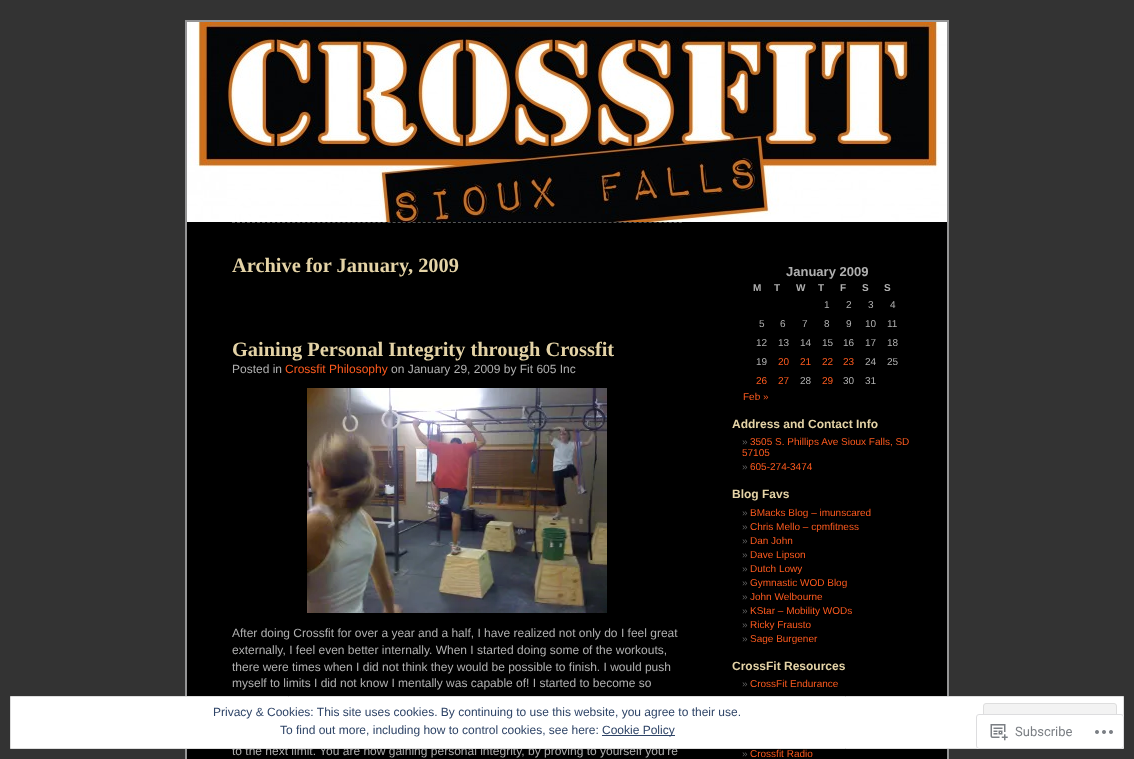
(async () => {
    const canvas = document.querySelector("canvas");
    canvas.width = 1134;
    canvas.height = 759;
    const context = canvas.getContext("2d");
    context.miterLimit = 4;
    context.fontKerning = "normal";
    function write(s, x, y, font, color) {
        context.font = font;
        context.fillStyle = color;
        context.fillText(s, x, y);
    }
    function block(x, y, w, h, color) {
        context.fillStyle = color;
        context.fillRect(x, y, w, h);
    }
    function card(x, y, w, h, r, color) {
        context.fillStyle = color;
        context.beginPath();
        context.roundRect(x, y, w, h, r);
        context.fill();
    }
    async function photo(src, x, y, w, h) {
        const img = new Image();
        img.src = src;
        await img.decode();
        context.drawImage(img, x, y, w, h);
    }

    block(0, 0, 1134, 759, "rgb(51, 51, 51)");
    block(187, 222, 760, 537, "rgb(0, 0, 0)");
    context.strokeStyle = "rgb(149, 149, 150)";
    context.lineWidth = 2;
    context.strokeRect(186, 21, 762, 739);
    await photo("media/1.png", 187, 22, 760, 200);
    context.beginPath();
    context.moveTo(232, 222.5);
    context.lineTo(682, 222.5);
    context.strokeStyle = "rgb(85, 85, 85)";
    context.lineWidth = 1;
    context.setLineDash([3, 2.02]);
    context.stroke();
    write("Archive for January, 2009", 232, 272, "bold 20.4px Liberation Serif", "rgb(228, 211, 166)");
    write("Gaining Personal Integrity through Crossfit", 232, 356, "bold 20.4px Liberation Serif", "rgb(228, 211, 166)");
    write("Posted in", 232, 373, "12px Liberation Sans", "rgb(176, 176, 176)");
    write("Crossfit Philosophy", 285, 373, "12px Liberation Sans", "rgb(253, 90, 30)");
    write("on January 29, 2009 by Fit 605 Inc", 391, 373, "12px Liberation Sans", "rgb(176, 176, 176)");
    await photo("media/2.png", 307, 388, 300, 225);
    write("After doing Crossfit for over a year and a half, I have realized not only do I feel great", 232, 637, "12px Liberation Sans", "rgb(176, 176, 176)");
    write("externally, I feel even better internally. When I started doing some of the workouts,", 232, 654, "12px Liberation Sans", "rgb(176, 176, 176)");
    write("there were times when I did not think they would be possible to finish. I would push", 232, 671, "12px Liberation Sans", "rgb(176, 176, 176)");
    write("myself to limits I did not know I mentally was capable of! I started to become so", 232, 687, "12px Liberation Sans", "rgb(176, 176, 176)");
    write("to the next limit. You are now gaining personal integrity, by proving to yourself you’re", 232, 755, "12px Liberation Sans", "rgb(176, 176, 176)");
    write("January 2009", 786, 276, "bold 13px Liberation Sans", "rgb(176, 176, 176)");
    write("M", 753, 291, "bold 10px Liberation Sans", "rgb(176, 176, 176)");
    write("T", 774, 291, "bold 10px Liberation Sans", "rgb(176, 176, 176)");
    write("W", 796, 291, "bold 10px Liberation Sans", "rgb(176, 176, 176)");
    write("T", 818, 291, "bold 10px Liberation Sans", "rgb(176, 176, 176)");
    write("F", 840, 291, "bold 10px Liberation Sans", "rgb(176, 176, 176)");
    write("S", 862, 291, "bold 10px Liberation Sans", "rgb(176, 176, 176)");
    write("S", 884, 291, "bold 10px Liberation Sans", "rgb(176, 176, 176)");
    write("1", 824, 308, "10px Liberation Sans", "rgb(176, 176, 176)");
    write("2", 846, 308, "10px Liberation Sans", "rgb(176, 176, 176)");
    write("3", 868, 308, "10px Liberation Sans", "rgb(176, 176, 176)");
    write("4", 890, 308, "10px Liberation Sans", "rgb(176, 176, 176)");
    write("5", 759, 327, "10px Liberation Sans", "rgb(176, 176, 176)");
    write("6", 780, 327, "10px Liberation Sans", "rgb(176, 176, 176)");
    write("7", 802, 327, "10px Liberation Sans", "rgb(176, 176, 176)");
    write("8", 824, 327, "10px Liberation Sans", "rgb(176, 176, 176)");
    write("9", 846, 327, "10px Liberation Sans", "rgb(176, 176, 176)");
    write("10", 865, 327, "10px Liberation Sans", "rgb(176, 176, 176)");
    write("11", 887, 327, "10px Liberation Sans", "rgb(176, 176, 176)");
    write("12", 756, 346, "10px Liberation Sans", "rgb(176, 176, 176)");
    write("13", 778, 346, "10px Liberation Sans", "rgb(176, 176, 176)");
    write("14", 800, 346, "10px Liberation Sans", "rgb(176, 176, 176)");
    write("15", 822, 346, "10px Liberation Sans", "rgb(176, 176, 176)");
    write("16", 843, 346, "10px Liberation Sans", "rgb(176, 176, 176)");
    write("17", 865, 346, "10px Liberation Sans", "rgb(176, 176, 176)");
    write("18", 887, 346, "10px Liberation Sans", "rgb(176, 176, 176)");
    write("19", 756, 365, "10px Liberation Sans", "rgb(176, 176, 176)");
    write("20", 778, 365, "10px Liberation Sans", "rgb(253, 90, 30)");
    write("21", 800, 365, "10px Liberation Sans", "rgb(253, 90, 30)");
    write("22", 822, 365, "10px Liberation Sans", "rgb(253, 90, 30)");
    write("23", 843, 365, "10px Liberation Sans", "rgb(253, 90, 30)");
    write("24", 865, 365, "10px Liberation Sans", "rgb(176, 176, 176)");
    write("25", 887, 365, "10px Liberation Sans", "rgb(176, 176, 176)");
    write("26", 756, 384, "10px Liberation Sans", "rgb(253, 90, 30)");
    write("27", 778, 384, "10px Liberation Sans", "rgb(253, 90, 30)");
    write("28", 800, 384, "10px Liberation Sans", "rgb(176, 176, 176)");
    write("29", 822, 384, "10px Liberation Sans", "rgb(253, 90, 30)");
    write("30", 843, 384, "10px Liberation Sans", "rgb(176, 176, 176)");
    write("31", 865, 384, "10px Liberation Sans", "rgb(176, 176, 176)");
    write("Feb »", 743, 400, "10px Liberation Sans", "rgb(253, 90, 30)");
    write("Address and Contact Info", 732, 428, "bold 12px Liberation Sans", "rgb(228, 211, 166)");
    write("»", 742, 445, "10px Liberation Sans", "rgb(102, 102, 102)");
    write("3505 S. Phillips Ave Sioux Falls, SD", 750, 445, "10px Liberation Sans", "rgb(253, 90, 30)");
    write("57105", 742, 456, "10px Liberation Sans", "rgb(253, 90, 30)");
    write("»", 742, 470, "10px Liberation Sans", "rgb(102, 102, 102)");
    write("605-274-3474", 750, 470, "10px Liberation Sans", "rgb(253, 90, 30)");
    write("Blog Favs", 732, 498, "bold 12px Liberation Sans", "rgb(228, 211, 166)");
    write("»", 742, 516, "10px Liberation Sans", "rgb(102, 102, 102)");
    write("BMacks Blog – imunscared", 750, 516, "10px Liberation Sans", "rgb(253, 90, 30)");
    write("»", 742, 530, "10px Liberation Sans", "rgb(102, 102, 102)");
    write("Chris Mello – cpmfitness", 750, 530, "10px Liberation Sans", "rgb(253, 90, 30)");
    write("»", 742, 544, "10px Liberation Sans", "rgb(102, 102, 102)");
    write("Dan John", 750, 544, "10px Liberation Sans", "rgb(253, 90, 30)");
    write("»", 742, 558, "10px Liberation Sans", "rgb(102, 102, 102)");
    write("Dave Lipson", 750, 558, "10px Liberation Sans", "rgb(253, 90, 30)");
    write("»", 742, 572, "10px Liberation Sans", "rgb(102, 102, 102)");
    write("Dutch Lowy", 750, 572, "10px Liberation Sans", "rgb(253, 90, 30)");
    write("»", 742, 586, "10px Liberation Sans", "rgb(102, 102, 102)");
    write("Gymnastic WOD Blog", 750, 586, "10px Liberation Sans", "rgb(253, 90, 30)");
    write("»", 742, 600, "10px Liberation Sans", "rgb(102, 102, 102)");
    write("John Welbourne", 750, 600, "10px Liberation Sans", "rgb(253, 90, 30)");
    write("»", 742, 614, "10px Liberation Sans", "rgb(102, 102, 102)");
    write("KStar – Mobility WODs", 750, 614, "10px Liberation Sans", "rgb(253, 90, 30)");
    write("»", 742, 628, "10px Liberation Sans", "rgb(102, 102, 102)");
    write("Ricky Frausto", 750, 628, "10px Liberation Sans", "rgb(253, 90, 30)");
    write("»", 742, 642, "10px Liberation Sans", "rgb(102, 102, 102)");
    write("Sage Burgener", 750, 642, "10px Liberation Sans", "rgb(253, 90, 30)");
    write("CrossFit Resources", 732, 670, "bold 12px Liberation Sans", "rgb(228, 211, 166)");
    write("»", 742, 687, "10px Liberation Sans", "rgb(102, 102, 102)");
    write("CrossFit Endurance", 750, 687, "10px Liberation Sans", "rgb(253, 90, 30)");
    write("»", 742, 757, "10px Liberation Sans", "rgb(102, 102, 102)");
    write("Crossfit Radio", 750, 757, "10px Liberation Sans", "rgb(253, 90, 30)");
    context.fillStyle = "rgb(255, 255, 255)";
    context.beginPath();
    context.rect(10.5, 696.5, 1113, 52);
    context.fill();
    context.strokeStyle = "rgb(222, 222, 222)";
    context.setLineDash([]);
    context.stroke();
    write("Privacy & Cookies: This site uses cookies. By continuing to use this website, you agree to their use.", 213, 716, "12px Liberation Sans", "rgb(46, 68, 103)");
    context.fillStyle = "rgb(243, 243, 243)";
    context.beginPath();
    context.roundRect(983.5, 703.5, 133, 38, 2.5);
    context.fill();
    context.stroke();
    write("To find out more, including how to control cookies, see here:", 280, 734, "12px Liberation Sans", "rgb(46, 68, 103)");
    block(602, 735, 73, 1, "rgb(46, 68, 103)");
    write("Cookie Policy", 602, 734, "12px Liberation Sans", "rgb(46, 68, 103)");
    card(976, 714, 148, 35, 3, "rgba(255, 255, 255, 0.98)");
    context.beginPath();
    context.roundRect(976.5, 714.5, 147, 34, 2.5);
    context.strokeStyle = "rgba(220, 220, 222, 0.98)";
    context.stroke();
    await photo("media/3.png", 990, 724, 18, 17);
    write("Subscribe", 1015, 736, "13px Roboto", "rgb(123, 127, 132)");
    await photo("media/4.png", 1095, 730, 18, 4);
})();
